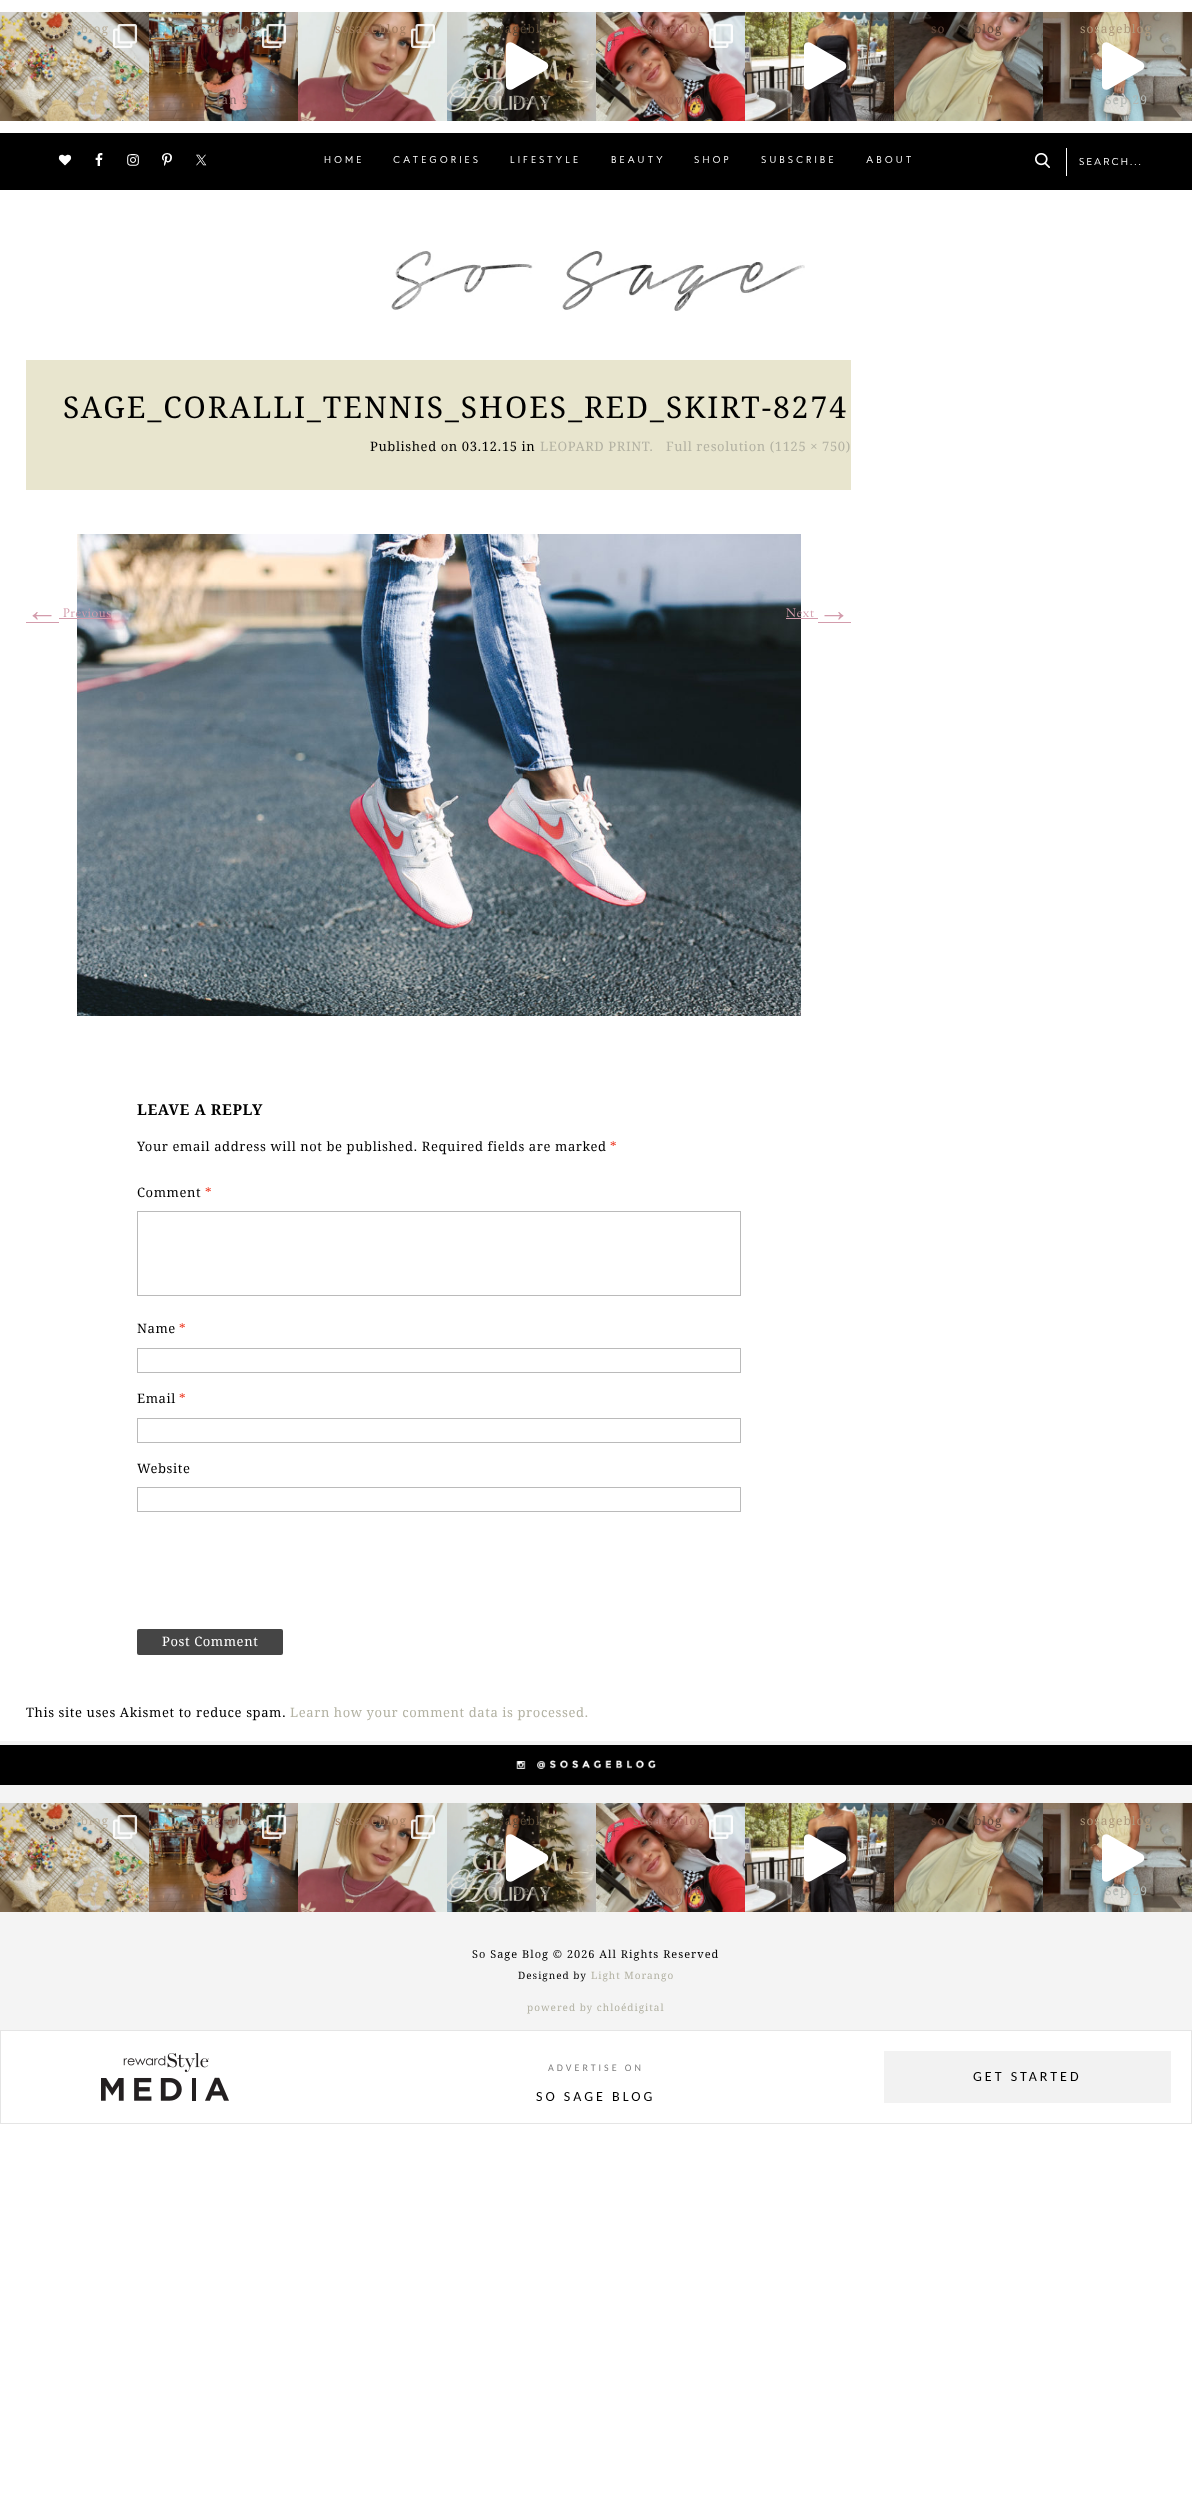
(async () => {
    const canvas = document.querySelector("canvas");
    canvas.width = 1192;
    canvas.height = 2515;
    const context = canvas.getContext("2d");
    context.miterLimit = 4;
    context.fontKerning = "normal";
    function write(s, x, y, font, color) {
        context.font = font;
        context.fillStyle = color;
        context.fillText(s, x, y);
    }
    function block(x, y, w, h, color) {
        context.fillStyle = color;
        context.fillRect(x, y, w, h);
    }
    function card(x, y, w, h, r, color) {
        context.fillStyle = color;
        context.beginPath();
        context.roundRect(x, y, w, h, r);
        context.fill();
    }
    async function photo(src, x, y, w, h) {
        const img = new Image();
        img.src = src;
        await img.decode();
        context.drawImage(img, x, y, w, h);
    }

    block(0, 0, 1192, 2515, "rgb(255, 255, 255)");
    await photo("media/1.png", 0, 12, 149, 109);
    context.letterSpacing = "1px";
    write("sosageblog", 37, 33, "12px Droid Serif", "rgb(186, 174, 154)");
    await photo("media/2.png", 113, 24, 24, 24);
    await photo("media/3.png", 149, 12, 149, 109);
    write("sosageblog", 186, 33, "12px Droid Serif", "rgb(135, 119, 108)");
    write("Jan 3", 216, 104, "12px Droid Serif", "rgb(136, 109, 107)");
    await photo("media/4.png", 262, 24, 24, 24);
    await photo("media/5.png", 298, 12, 149, 109);
    write("sosageblog", 335, 33, "12px Droid Serif", "rgb(161, 124, 95)");
    await photo("media/6.png", 411, 24, 24, 24);
    await photo("media/7.png", 447, 12, 149, 109);
    write("sosageblog", 484, 33, "12px Droid Serif", "rgb(85, 70, 51)");
    write("Dec 5", 513, 104, "12px Droid Serif", "rgb(100, 96, 87)");
    context.fillStyle = "rgb(255, 255, 255)";
    context.beginPath();
    context.moveTo(546, 62);
    context.lineTo(513, 43);
    context.bezierCurveTo(510, 41, 506, 43, 506, 46);
    context.lineTo(506, 86);
    context.bezierCurveTo(506, 89, 510, 91, 513, 89);
    context.lineTo(546, 70);
    context.bezierCurveTo(549, 68, 549, 64, 546, 62);
    context.closePath();
    context.fill();
    await photo("media/8.png", 596, 12, 149, 109);
    write("sosageblog", 633, 33, "12px Droid Serif", "rgb(173, 112, 99)");
    write("Nov 10", 657, 104, "12px Droid Serif", "rgb(151, 99, 80)");
    await photo("media/9.png", 709, 24, 24, 24);
    await photo("media/10.png", 745, 12, 149, 109);
    context.fillStyle = "rgb(255, 255, 255)";
    context.beginPath();
    context.moveTo(844, 62);
    context.lineTo(811, 43);
    context.bezierCurveTo(808, 41, 804, 43, 804, 46);
    context.lineTo(804, 86);
    context.bezierCurveTo(804, 89, 808, 91, 811, 89);
    context.lineTo(844, 70);
    context.bezierCurveTo(847, 68, 847, 64, 844, 62);
    context.closePath();
    context.fill();
    await photo("media/11.png", 894, 12, 149, 109);
    write("so", 931, 33, "12px Droid Serif", "rgb(101, 75, 63)");
    write("blog", 974, 33, "12px Droid Serif", "rgb(101, 75, 63)");
    write("t 7", 977, 104, "12px Droid Serif", "rgb(188, 176, 141)");
    await photo("media/12.png", 1043, 12, 149, 109);
    write("sosageblog", 1080, 33, "12px Droid Serif", "rgb(174, 153, 124)");
    write("Sep 29", 1105, 104, "12px Droid Serif", "rgb(178, 183, 179)");
    context.fillStyle = "rgb(255, 255, 255)";
    context.beginPath();
    context.moveTo(1142, 62);
    context.lineTo(1109, 43);
    context.bezierCurveTo(1106, 41, 1102, 43, 1102, 46);
    context.lineTo(1102, 86);
    context.bezierCurveTo(1102, 89, 1106, 91, 1109, 89);
    context.lineTo(1142, 70);
    context.bezierCurveTo(1145, 68, 1145, 64, 1142, 62);
    context.closePath();
    context.fill();
    block(0, 133, 1192, 57, "rgb(0, 0, 0)");
    await photo("media/13.png", 58, 154, 14, 12);
    await photo("media/14.png", 95, 153, 8, 13);
    await photo("media/15.png", 127, 154, 12, 12);
    await photo("media/16.png", 162, 153, 10, 13);
    await photo("media/17.png", 196, 154, 11, 12);
    context.letterSpacing = "3px";
    write("HOME", 324, 163, "10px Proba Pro", "rgb(255, 255, 255)");
    write("CATEGORIES", 393, 163, "10px Proba Pro", "rgb(255, 255, 255)");
    write("LIFESTYLE", 510, 163, "10px Proba Pro", "rgb(255, 255, 255)");
    write("BEAUTY", 611, 163, "10px Proba Pro", "rgb(255, 255, 255)");
    write("SHOP", 694, 163, "10px Proba Pro", "rgb(255, 255, 255)");
    write("SUBSCRIBE", 761, 163, "10px Proba Pro", "rgb(255, 255, 255)");
    write("ABOUT", 866, 163, "10px Proba Pro", "rgb(255, 255, 255)");
    await photo("media/18.png", 1035, 153, 15, 15);
    block(1066, 148, 1, 28, "rgb(255, 255, 255)");
    context.letterSpacing = "2px";
    write("SEARCH...", 1079, 165, "10px Brandon Grotesque", "rgb(255, 255, 255)");
    await photo("media/19.png", 391, 251, 414, 60);
    block(26, 360, 825, 130, "rgb(232, 229, 206)");
    write("SAGE_CORALLI_TENNIS_SHOES_RED_SKIRT-8274", 63, 418, "30px Droid Serif", "rgb(0, 0, 0)");
    context.letterSpacing = "0.6px";
    write("Published on 03.12.15 in", 370, 451, "13px Droid Serif", "rgb(0, 0, 0)");
    write("LEOPARD PRINT.", 540, 451, "13px Droid Serif", "rgb(179, 178, 163)");
    write("Full resolution (1125 × 750)", 666, 451, "13px Droid Serif", "rgb(179, 178, 163)");
    await photo("media/20.png", 77, 534, 724, 482);
    write("←", 26, 621, "32px Liberation Serif", "rgb(211, 156, 172)");
    block(26, 622, 33, 1, "rgb(211, 156, 172)");
    block(59, 618, 52, 1, "rgb(211, 156, 172)");
    await photo("media/21.png", 63, 608, 48, 10);
    await photo("media/22.png", 786, 608, 28, 10);
    write("→", 818, 621, "32px Liberation Serif", "rgb(211, 156, 172)");
    block(786, 618, 32, 1, "rgb(211, 156, 172)");
    block(818, 622, 33, 1, "rgb(211, 156, 172)");
    write("LEAVE A REPLY", 137, 1115, "bold 15px Droid Serif", "rgb(0, 0, 0)");
    write("Your email address will not be published. Required fields are marked", 137, 1151, "13px Droid Serif", "rgb(0, 0, 0)");
    write("*", 610, 1151, "13px Droid Serif", "rgb(237, 51, 28)");
    write("Comment", 137, 1197, "13px Droid Serif", "rgb(0, 0, 0)");
    write("*", 205, 1197, "13px Droid Serif", "rgb(237, 51, 28)");
    context.strokeStyle = "rgb(186, 186, 186)";
    context.strokeRect(137.5, 1211.5, 603, 84);
    write("Name", 137, 1333, "13px Droid Serif", "rgb(0, 0, 0)");
    write("*", 179, 1333, "13px Droid Serif", "rgb(237, 51, 28)");
    context.strokeRect(137.5, 1348.5, 603, 24);
    write("Email", 137, 1403, "13px Droid Serif", "rgb(0, 0, 0)");
    write("*", 179, 1403, "13px Droid Serif", "rgb(237, 51, 28)");
    context.strokeRect(137.5, 1418.5, 603, 24);
    write("Website", 137, 1473, "13px Droid Serif", "rgb(0, 0, 0)");
    context.strokeRect(137.5, 1487.5, 603, 24);
    card(137, 1629, 146, 26, 2, "rgb(69, 69, 69)");
    write("Post Comment", 162, 1646, "13px Droid Serif", "rgb(255, 255, 255)");
    write("This site uses Akismet to reduce spam.", 26, 1717, "13px Droid Serif", "rgb(0, 0, 0)");
    write("Learn how your comment data is processed.", 290, 1717, "13px Droid Serif", "rgb(179, 178, 163)");
    block(0, 1741, 1192, 289, "rgb(244, 244, 244)");
    await photo("media/23.png", 0, 1745, 1192, 40);
    await photo("media/1.png", 0, 1803, 149, 109);
    context.letterSpacing = "1px";
    write("sosageblog", 37, 1825, "12px Droid Serif", "rgb(186, 174, 154)");
    await photo("media/2.png", 113, 1815, 24, 24);
    await photo("media/3.png", 149, 1803, 149, 109);
    write("sosageblog", 186, 1825, "12px Droid Serif", "rgb(135, 119, 108)");
    write("Jan 3", 216, 1895, "12px Droid Serif", "rgb(136, 109, 107)");
    await photo("media/4.png", 262, 1815, 24, 24);
    await photo("media/5.png", 298, 1803, 149, 109);
    write("sosageblog", 335, 1825, "12px Droid Serif", "rgb(161, 124, 95)");
    await photo("media/6.png", 411, 1815, 24, 24);
    await photo("media/7.png", 447, 1803, 149, 109);
    write("sosageblog", 484, 1825, "12px Droid Serif", "rgb(85, 70, 51)");
    write("Dec 5", 513, 1895, "12px Droid Serif", "rgb(100, 96, 87)");
    context.fillStyle = "rgb(255, 255, 255)";
    context.beginPath();
    context.moveTo(546, 1854);
    context.lineTo(513, 1835);
    context.bezierCurveTo(510, 1833, 506, 1835, 506, 1838);
    context.lineTo(506, 1878);
    context.bezierCurveTo(506, 1881, 510, 1883, 513, 1881);
    context.lineTo(546, 1862);
    context.bezierCurveTo(549, 1860, 549, 1856, 546, 1854);
    context.closePath();
    context.fill();
    await photo("media/8.png", 596, 1803, 149, 109);
    write("sosageblog", 633, 1825, "12px Droid Serif", "rgb(173, 112, 99)");
    write("Nov 10", 657, 1895, "12px Droid Serif", "rgb(151, 99, 80)");
    await photo("media/9.png", 709, 1815, 24, 24);
    await photo("media/10.png", 745, 1803, 149, 109);
    context.fillStyle = "rgb(255, 255, 255)";
    context.beginPath();
    context.moveTo(844, 1854);
    context.lineTo(811, 1835);
    context.bezierCurveTo(808, 1833, 804, 1835, 804, 1838);
    context.lineTo(804, 1878);
    context.bezierCurveTo(804, 1881, 808, 1883, 811, 1881);
    context.lineTo(844, 1862);
    context.bezierCurveTo(847, 1860, 847, 1856, 844, 1854);
    context.closePath();
    context.fill();
    await photo("media/11.png", 894, 1803, 149, 109);
    write("so", 931, 1825, "12px Droid Serif", "rgb(101, 75, 63)");
    write("blog", 974, 1825, "12px Droid Serif", "rgb(101, 75, 63)");
    write("t 7", 977, 1895, "12px Droid Serif", "rgb(188, 176, 141)");
    await photo("media/24.png", 1043, 1803, 149, 109);
    write("sosageblog", 1080, 1825, "12px Droid Serif", "rgb(174, 153, 124)");
    write("Sep 29", 1105, 1895, "12px Droid Serif", "rgb(178, 183, 179)");
    context.fillStyle = "rgb(255, 255, 255)";
    context.beginPath();
    context.moveTo(1142, 1854);
    context.lineTo(1109, 1835);
    context.bezierCurveTo(1106, 1833, 1102, 1835, 1102, 1838);
    context.lineTo(1102, 1878);
    context.bezierCurveTo(1102, 1881, 1106, 1883, 1109, 1881);
    context.lineTo(1142, 1862);
    context.bezierCurveTo(1145, 1860, 1145, 1856, 1142, 1854);
    context.closePath();
    context.fill();
    write("So Sage Blog © 2026 All Rights Reserved", 472, 1958, "11px Droid Serif", "rgb(0, 0, 0)");
    write("Designed by", 518, 1979, "10px Droid Serif", "rgb(0, 0, 0)");
    write("Light Morango", 591, 1979, "10px Droid Serif", "rgb(179, 178, 163)");
    write("powered by chloédigital", 527, 2011, "10px Droid Serif", "rgb(179, 178, 163)");
    context.strokeStyle = "rgb(229, 229, 229)";
    context.strokeRect(0.5, 2030.5, 1191, 93);
    await photo("media/25.png", 101, 2053, 128, 48);
    context.letterSpacing = "3px";
    write("ADVERTISE ON", 548, 2071, "10px Carlito", "rgb(128, 128, 128)");
    write("SO SAGE BLOG", 536, 2101, "14px Carlito", "rgb(0, 0, 0)");
    block(884, 2051, 287, 52, "rgb(242, 242, 242)");
    write("GET STARTED", 973, 2081, "14px Carlito", "rgb(0, 0, 0)");
})();
